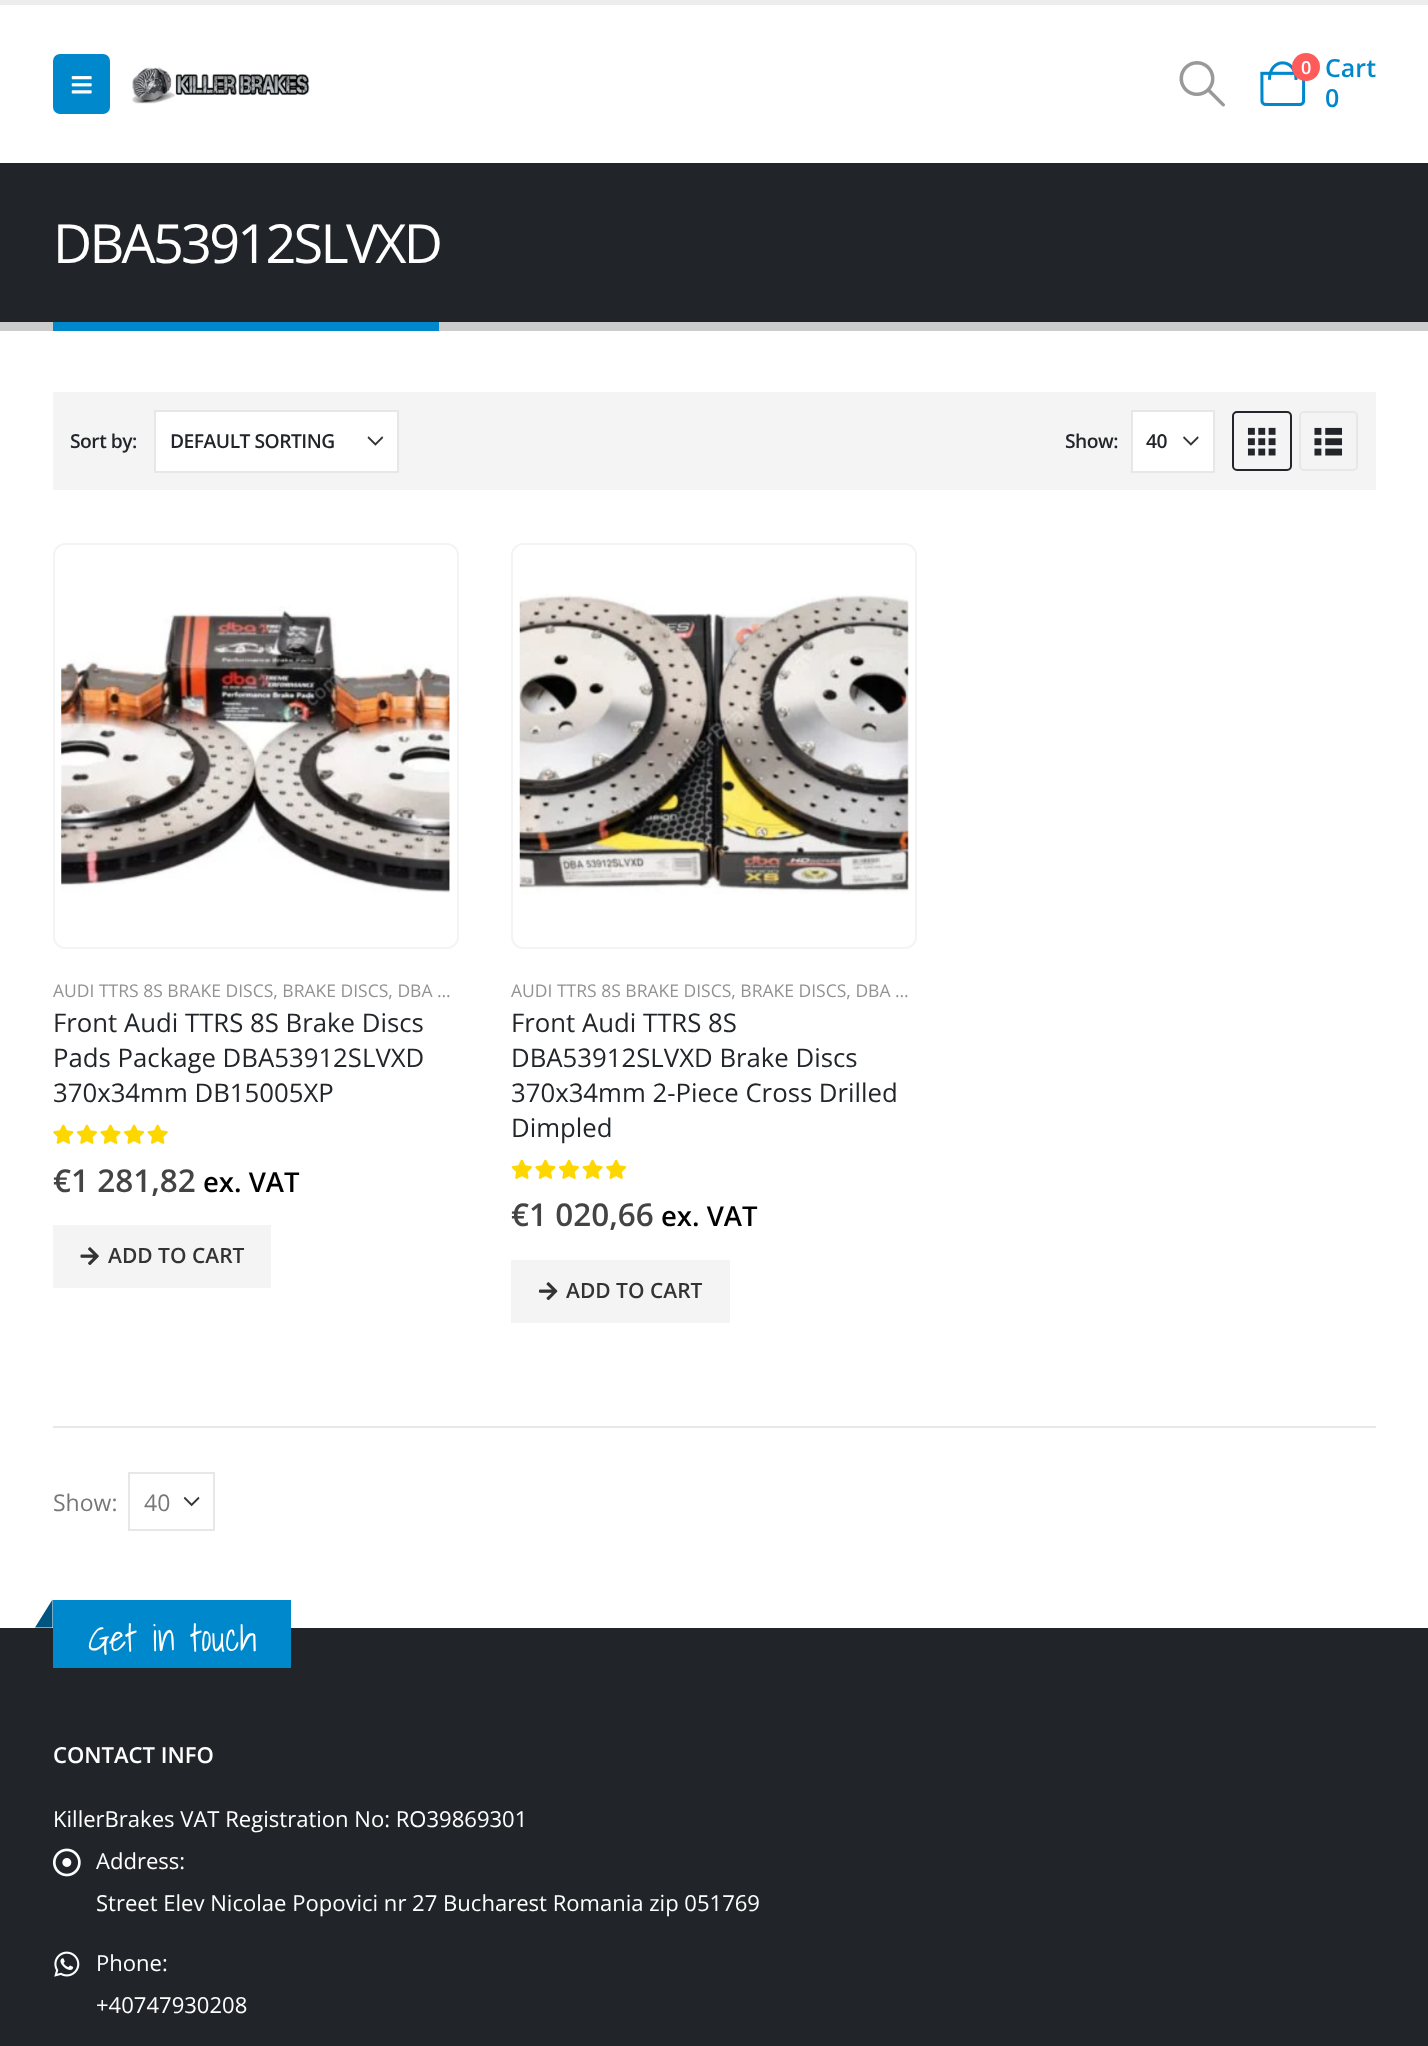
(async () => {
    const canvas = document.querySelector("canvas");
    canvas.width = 1428;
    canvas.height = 2046;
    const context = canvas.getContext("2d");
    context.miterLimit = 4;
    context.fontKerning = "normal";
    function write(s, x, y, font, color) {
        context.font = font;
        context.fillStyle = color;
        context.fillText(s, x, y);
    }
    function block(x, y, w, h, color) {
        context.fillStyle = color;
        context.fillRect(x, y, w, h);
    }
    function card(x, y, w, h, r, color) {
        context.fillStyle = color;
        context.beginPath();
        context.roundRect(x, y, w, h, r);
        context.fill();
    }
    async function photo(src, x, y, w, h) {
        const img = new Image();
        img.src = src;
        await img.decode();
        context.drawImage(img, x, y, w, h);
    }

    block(0, 0, 1428, 2046, "rgb(255, 255, 255)");
    block(0, 0, 1428, 5, "rgb(237, 237, 237)");
    card(53, 54, 57, 60, 7, "rgb(0, 136, 204)");
    await photo("media/1.png", 71, 76, 21, 18);
    await photo("media/2.png", 132, 66, 178, 38);
    await photo("media/3.png", 1179, 61, 46, 46);
    await photo("media/4.png", 1260, 61, 46, 45);
    context.fillStyle = "rgb(255, 91, 91)";
    context.beginPath();
    context.arc(1306, 67, 14, 0, Math.PI * 2);
    context.fill();
    write("0", 1301, 74, "600 18px Open Sans", "rgb(255, 255, 255)");
    write("Cart", 1325, 77, "600 25px Open Sans", "rgb(0, 136, 204)");
    write("0", 1325, 107, "600 25px Open Sans", "rgb(0, 136, 204)");
    block(0, 163, 1428, 159, "rgb(33, 37, 41)");
    block(0, 322, 1428, 9, "rgb(204, 204, 204)");
    context.letterSpacing = "-2.75px";
    write("DBA53912SLVXD", 53, 263, "54px Open Sans", "rgb(255, 255, 255)");
    block(53, 322, 386, 9, "rgb(0, 136, 204)");
    block(53, 392, 1323, 98, "rgb(244, 244, 244)");
    context.letterSpacing = "-0.5px";
    write("Sort by:", 70, 448, "600 19.25px Open Sans", "rgb(34, 37, 41)");
    block(156, 412, 241, 59, "rgb(255, 255, 255)");
    await photo("media/5.png", 367, 436, 17, 10);
    context.strokeStyle = "rgb(231, 231, 231)";
    context.lineWidth = 2;
    context.strokeRect(155, 411, 243, 61);
    write("DEFAULT SORTING", 170, 448, "600 19.25px Open Sans", "rgb(34, 37, 41)");
    write("Show:", 1065, 448, "600 19.25px Open Sans", "rgb(34, 37, 41)");
    block(1133, 412, 80, 59, "rgb(255, 255, 255)");
    await photo("media/6.png", 1183, 436, 16, 10);
    context.strokeRect(1132, 411, 82, 61);
    write("40", 1146, 448, "600 19.25px Open Sans", "rgb(34, 37, 41)");
    context.beginPath();
    context.roundRect(1233, 412, 58, 58, 4);
    context.strokeStyle = "rgb(34, 37, 41)";
    context.stroke();
    await photo("media/7.png", 1247, 427, 29, 29);
    context.beginPath();
    context.roundRect(1300, 412, 57, 58, 4);
    context.strokeStyle = "rgb(231, 231, 231)";
    context.stroke();
    await photo("media/8.png", 1314, 427, 29, 29);
    context.beginPath();
    context.roundRect(54, 544, 404, 404, 11);
    context.strokeStyle = "rgb(244, 244, 244)";
    context.stroke();
    await photo("media/9.png", 61, 606, 389, 287);
    context.letterSpacing = "0px";
    write("AUDI TTRS 8S BRAKE DISCS, BRAKE DISCS, DBA …", 53, 997, "17.5px Open Sans", "rgb(146, 146, 146)");
    write("Front Audi TTRS 8S Brake Discs", 53, 1032, "25.75px Open Sans", "rgb(34, 37, 41)");
    write("Pads Package DBA53912SLVXD", 53, 1067, "25.75px Open Sans", "rgb(34, 37, 41)");
    write("370x34mm DB15005XP", 53, 1102, "25.75px Open Sans", "rgb(34, 37, 41)");
    await photo("media/10.png", 53, 1124, 115, 20);
    write("€1 281,82", 53, 1192, "600 31.5px Open Sans", "rgb(68, 68, 68)");
    write("ex. VAT", 203, 1192, "600 27.5px Open Sans", "rgb(0, 0, 0)");
    block(53, 1225, 218, 63, "rgb(244, 244, 244)");
    await photo("media/11.png", 80, 1247, 19, 18);
    write("ADD TO CART", 108, 1263, "600 21px Open Sans", "rgb(51, 51, 51)");
    context.beginPath();
    context.roundRect(512, 544, 404, 404, 11);
    context.stroke();
    await photo("media/12.png", 519, 594, 390, 300);
    write("AUDI TTRS 8S BRAKE DISCS, BRAKE DISCS, DBA …", 511, 997, "17.5px Open Sans", "rgb(146, 146, 146)");
    write("Front Audi TTRS 8S", 511, 1032, "25.75px Open Sans", "rgb(34, 37, 41)");
    write("DBA53912SLVXD Brake Discs", 511, 1067, "25.75px Open Sans", "rgb(34, 37, 41)");
    write("370x34mm 2-Piece Cross Drilled", 511, 1102, "25.75px Open Sans", "rgb(34, 37, 41)");
    write("Dimpled", 511, 1137, "25.75px Open Sans", "rgb(34, 37, 41)");
    await photo("media/13.png", 511, 1159, 116, 20);
    write("€1 020,66", 511, 1226, "600 31.5px Open Sans", "rgb(68, 68, 68)");
    write("ex. VAT", 661, 1226, "600 27.5px Open Sans", "rgb(0, 0, 0)");
    block(511, 1260, 219, 63, "rgb(244, 244, 244)");
    await photo("media/14.png", 539, 1282, 19, 19);
    write("ADD TO CART", 566, 1298, "600 21px Open Sans", "rgb(51, 51, 51)");
    block(53, 1426, 1323, 2, "rgb(231, 231, 231)");
    write("Show:", 53, 1511, "23px Open Sans", "rgb(119, 119, 119)");
    await photo("media/15.png", 183, 1496, 17, 11);
    context.strokeStyle = "rgb(231, 231, 231)";
    context.strokeRect(129, 1473, 85, 57);
    write("40", 144, 1511, "23px Open Sans", "rgb(119, 119, 119)");
    block(0, 1628, 1428, 418, "rgb(33, 37, 41)");
    block(53, 1600, 238, 68, "rgb(0, 136, 204)");
    context.fillStyle = "rgb(0, 85, 128)";
    context.beginPath();
    context.moveTo(52.5, 1599.5);
    context.lineTo(52.5, 1627.5);
    context.lineTo(35, 1627.5);
    context.closePath();
    context.fill();
    write("Get in touch", 88, 1651, "36.5px Shadows Into Light", "rgb(255, 255, 255)");
    write("CONTACT INFO", 53, 1763, "600 22.05px Open Sans", "rgb(255, 255, 255)");
    write("KillerBrakes VAT Registration No: RO39869301", 53, 1827, "22.05px Open Sans", "rgb(255, 255, 255)");
    await photo("media/16.png", 52, 1848, 29, 29);
    write("Address:", 96, 1869, "22.05px Open Sans", "rgb(255, 255, 255)");
    write("Street Elev Nicolae Popovici nr 27 Bucharest Romania zip 051769", 96, 1911, "22.05px Open Sans", "rgb(255, 255, 255)");
    await photo("media/17.png", 54, 1951, 26, 26);
    write("Phone:", 96, 1971, "22.05px Open Sans", "rgb(255, 255, 255)");
    write("+40747930208", 96, 2013, "22.05px Open Sans", "rgb(255, 255, 255)");
})();
